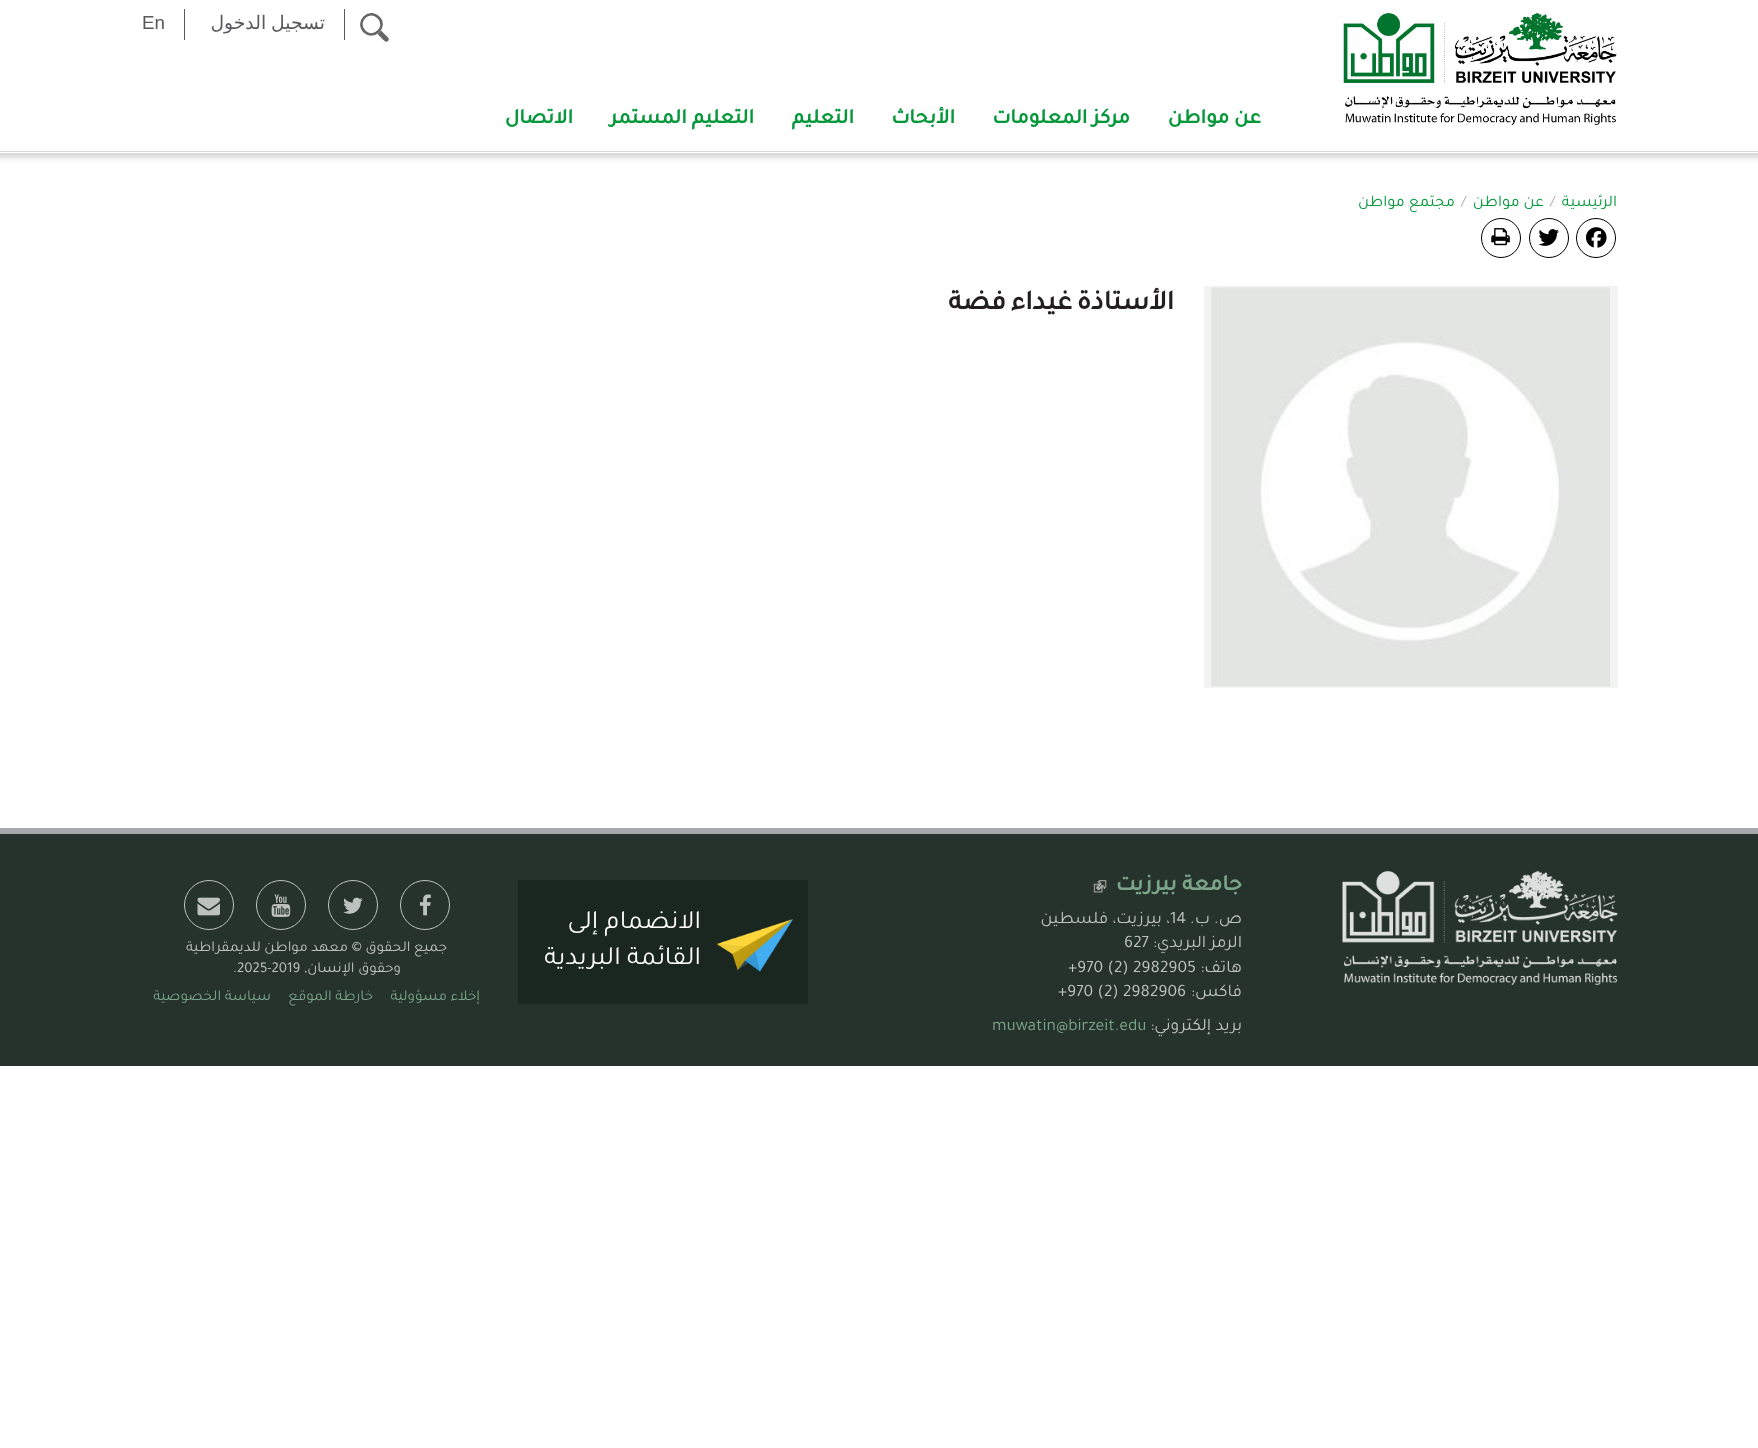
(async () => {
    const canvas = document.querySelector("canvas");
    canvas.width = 1758;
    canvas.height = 1448;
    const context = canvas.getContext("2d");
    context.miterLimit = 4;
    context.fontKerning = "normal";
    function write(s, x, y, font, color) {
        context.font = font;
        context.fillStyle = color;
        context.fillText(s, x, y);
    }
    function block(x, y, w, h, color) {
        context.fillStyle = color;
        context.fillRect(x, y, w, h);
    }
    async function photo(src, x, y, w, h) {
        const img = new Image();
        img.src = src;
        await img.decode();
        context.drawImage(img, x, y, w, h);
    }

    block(0, 0, 1758, 1448, "rgb(255, 255, 255)");
    context.fillStyle = "rgba(0, 0, 0, 0.15)";
    context.filter = "blur(2.5px)";
    context.beginPath();
    context.rect(-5, -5, 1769, 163);
    context.fill();
    context.filter = "none";
    block(0, 0, 1758, 153, "rgb(255, 255, 255)");
    block(0, 151, 1758, 1, "rgb(216, 216, 216)");
    await photo("media/1.png", 1343, 13, 274, 113);
    context.fillStyle = "rgb(102, 102, 102)";
    context.beginPath();
    context.moveTo(384.5, 41);
    context.lineTo(363.5, 20);
    context.bezierCurveTo(362.5, 19, 362.5, 17.5, 363.5, 16.5);
    context.bezierCurveTo(364.5, 15.5, 366, 15.5, 367, 16.5);
    context.lineTo(388, 37.5);
    context.bezierCurveTo(389, 38.5, 389, 40, 388, 41);
    context.bezierCurveTo(387.5, 42, 385.5, 42, 384.5, 41);
    context.closePath();
    context.fill();
    context.fillStyle = "rgb(255, 255, 255)";
    context.beginPath();
    context.moveTo(363.5, 32.5);
    context.bezierCurveTo(353, 22, 369, 6, 379.5, 16.5);
    context.bezierCurveTo(390, 27, 374, 42.5, 363.5, 32.5);
    context.closePath();
    context.fill();
    context.beginPath();
    context.moveTo(364.5, 31.5);
    context.bezierCurveTo(355, 22, 369, 8, 378.5, 17.5);
    context.bezierCurveTo(388, 26.5, 373.5, 40.5, 364.5, 31.5);
    context.closePath();
    context.strokeStyle = "rgb(102, 102, 102)";
    context.lineWidth = 2.5;
    context.stroke();
    block(344, 9, 1, 31, "rgb(88, 89, 91)");
    context.wordSpacing = "-1px";
    context.direction = "rtl";
    write("تسجيل الدخول", 325, 29, "18.75px DejaVu Sans", "rgb(88, 89, 91)");
    block(184, 9, 1, 31, "rgb(88, 89, 91)");
    context.wordSpacing = "0px";
    context.direction = "ltr";
    write("En", 142, 29, "18.75px Liberation Sans", "rgb(88, 89, 91)");
    context.direction = "rtl";
    write("عن مواطن", 1261, 123, "bold 21px Tajawal", "rgb(5, 152, 59)");
    write("مركز المعلومات", 1130, 123, "bold 21px Tajawal", "rgb(5, 152, 59)");
    write("الأبحاث", 955, 123, "bold 21px Tajawal", "rgb(5, 152, 59)");
    write("التعليم", 854, 123, "bold 21px Tajawal", "rgb(5, 152, 59)");
    write("التعليم المستمر", 754, 123, "bold 21px Tajawal", "rgb(5, 152, 59)");
    write("الاتصال", 573, 123, "bold 21px Tajawal", "rgb(5, 152, 59)");
    write("الرئيسية", 1617, 206, "16.25px Tajawal", "rgb(5, 152, 59)");
    context.direction = "ltr";
    write("/", 1550, 206, "16.25px Tajawal", "rgb(171, 171, 171)");
    context.direction = "rtl";
    write("عن مواطن", 1544, 206, "16.25px Tajawal", "rgb(5, 152, 59)");
    context.direction = "ltr";
    write("/", 1461, 206, "16.25px Tajawal", "rgb(171, 171, 171)");
    context.direction = "rtl";
    write("مجتمع مواطن", 1455, 206, "16.25px Tajawal", "rgb(5, 152, 59)");
    context.beginPath();
    context.arc(1596, 238, 19.5, 0, Math.PI * 2);
    context.strokeStyle = "rgb(0, 0, 0)";
    context.lineWidth = 1;
    context.stroke();
    await photo("media/2.png", 1585, 227, 22, 21);
    context.beginPath();
    context.arc(1549, 238, 19.5, 0, Math.PI * 2);
    context.stroke();
    await photo("media/3.png", 1538, 229, 21, 17);
    context.beginPath();
    context.arc(1501, 238, 19.5, 0, Math.PI * 2);
    context.stroke();
    await photo("media/4.png", 1491, 228, 19, 18);
    block(1204, 286, 414, 402, "rgb(242, 243, 242)");
    await photo("media/5.png", 1210, 286, 400, 401);
    write("الأستاذة", 1174, 309, "bold 27.5px Tajawal", "rgb(35, 31, 32)");
    write("غيداء", 1072, 309, "bold 27.5px Tajawal", "rgb(35, 31, 32)");
    write("فضة", 1006, 309, "bold 27.5px Tajawal", "rgb(35, 31, 32)");
    block(0, 834, 1758, 232, "rgb(38, 51, 44)");
    block(0, 828, 1758, 6, "rgb(166, 168, 171)");
    await photo("media/6.png", 1342, 871, 276, 114);
    write("جامعة بيرزيت", 1242, 890, "bold 22.5px Tajawal", "rgb(122, 165, 137)");
    await photo("media/7.png", 1093, 880, 14, 13);
    write("ص. ب.", 1242, 923, "17.5px Tajawal", "rgb(190, 194, 192)");
    context.direction = "ltr";
    write("14", 1170, 923, "17.5px Tajawal", "rgb(190, 194, 192)");
    context.direction = "rtl";
    write("، بيرزيت، فلسطين", 1170, 923, "17.5px Tajawal", "rgb(190, 194, 192)");
    write("الرمز البريدي:", 1242, 947, "17.5px Tajawal", "rgb(190, 194, 192)");
    context.direction = "ltr";
    write("627", 1124, 947, "17.5px Tajawal", "rgb(190, 194, 192)");
    context.direction = "rtl";
    write("هاتف:", 1242, 972, "17.5px Tajawal", "rgb(190, 194, 192)");
    context.direction = "ltr";
    write("+970 (2) 2982905", 1068, 972, "17.5px Tajawal", "rgb(190, 194, 192)");
    context.direction = "rtl";
    write("فاكس:", 1242, 996, "17.5px Tajawal", "rgb(190, 194, 192)");
    context.direction = "ltr";
    write("+970 (2) 2982906", 1058, 996, "17.5px Tajawal", "rgb(190, 194, 192)");
    context.direction = "rtl";
    write("بريد إلكتروني:", 1242, 1030, "17.5px Tajawal", "rgb(190, 194, 192)");
    context.direction = "ltr";
    write("muwatin@birzeit.edu", 992, 1030, "17.5px Tajawal", "rgb(122, 165, 137)");
    block(518, 880, 290, 124, "rgb(26, 39, 32)");
    await photo("media/8.png", 716, 919, 77, 53);
    context.direction = "rtl";
    write("الانضمام إلى", 701, 928, "26.25px Tajawal", "rgb(255, 255, 255)");
    write("القائمة البريدية", 701, 964, "26.25px Tajawal", "rgb(255, 255, 255)");
    context.beginPath();
    context.arc(425, 905, 24.5, 0, Math.PI * 2);
    context.strokeStyle = "rgb(190, 194, 192)";
    context.stroke();
    await photo("media/9.png", 419, 894, 12, 22);
    context.beginPath();
    context.arc(353, 905, 24.5, 0, Math.PI * 2);
    context.stroke();
    await photo("media/10.png", 343, 897, 20, 17);
    context.beginPath();
    context.arc(281, 905, 24.5, 0, Math.PI * 2);
    context.stroke();
    await photo("media/11.png", 271, 894, 20, 23);
    context.beginPath();
    context.arc(209, 905, 24.5, 0, Math.PI * 2);
    context.stroke();
    await photo("media/12.png", 197, 897, 23, 19);
    write("جميع الحقوق © معهد مواطن للديمقراطية", 447, 951, "15px Tajawal", "rgb(190, 194, 192)");
    write("وحقوق الإنسان,", 401, 972, "15px Tajawal", "rgb(190, 194, 192)");
    context.direction = "ltr";
    write(".2025-2019", 233, 972, "15px Tajawal", "rgb(190, 194, 192)");
    context.direction = "rtl";
    write("إخلاء مسؤولية", 480, 1000, "15px Tajawal", "rgb(122, 165, 137)");
    write("خارطة الموقع", 373, 1000, "15px Tajawal", "rgb(122, 165, 137)");
    write("سياسة الخصوصية", 271, 1000, "15px Tajawal", "rgb(122, 165, 137)");
})();
